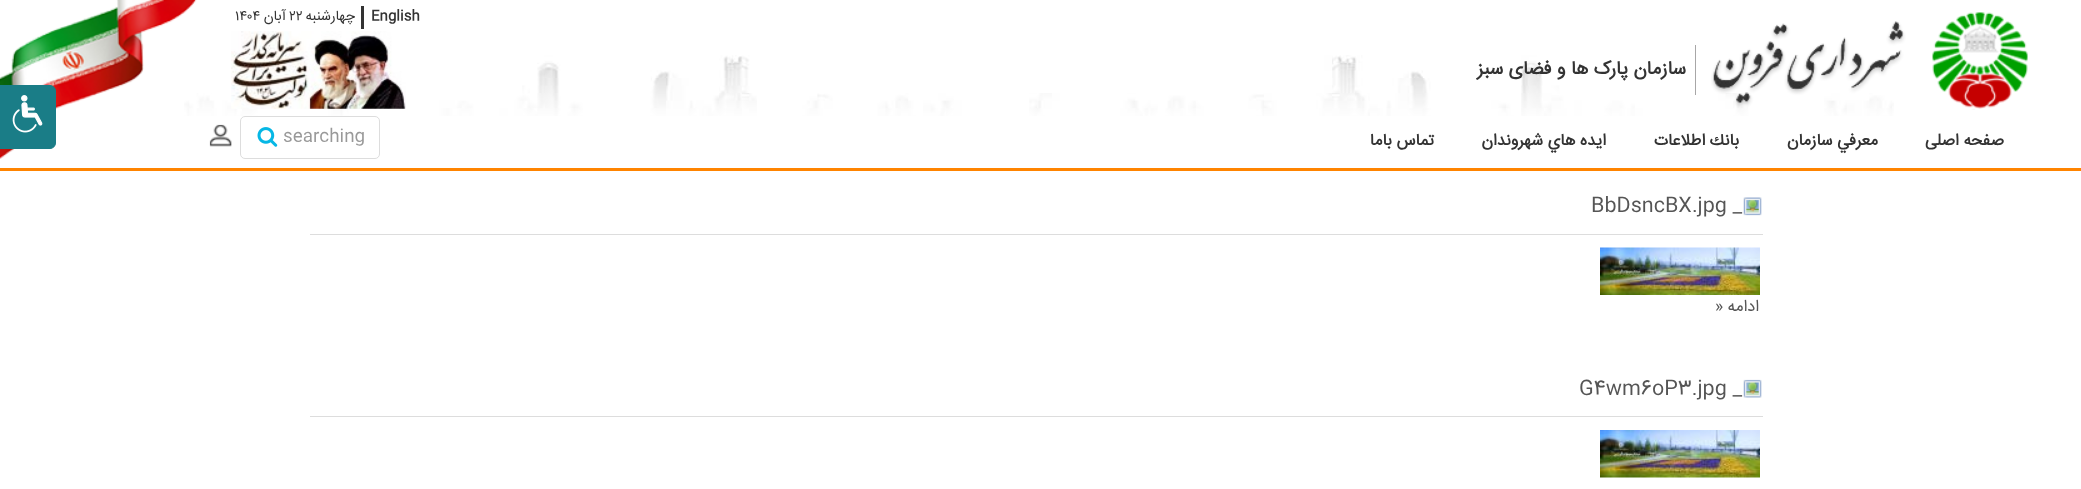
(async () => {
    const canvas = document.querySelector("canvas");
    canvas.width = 2081;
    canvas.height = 489;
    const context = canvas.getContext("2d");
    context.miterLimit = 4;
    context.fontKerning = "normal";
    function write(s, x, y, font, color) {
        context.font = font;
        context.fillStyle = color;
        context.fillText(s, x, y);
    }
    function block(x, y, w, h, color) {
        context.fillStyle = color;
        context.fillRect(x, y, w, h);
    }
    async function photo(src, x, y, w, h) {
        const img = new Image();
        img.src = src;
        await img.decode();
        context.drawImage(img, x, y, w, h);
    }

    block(0, 0, 2081, 489, "rgb(255, 255, 255)");
    await photo("media/1.png", 184, 55, 1710, 61);
    block(0, 168, 2081, 3, "rgb(255, 132, 0)");
    write("English", 371, 20, "bold 14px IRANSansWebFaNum", "rgb(51, 51, 51)");
    context.direction = "rtl";
    write("چهارشنبه", 355, 20, "14px IRANSansWebFaNum", "rgb(51, 51, 51)");
    block(361, 6, 3, 23, "rgb(51, 51, 51)");
    context.direction = "ltr";
    write("۲۲", 289, 20, "14px IRANSansWebFaNum", "rgb(51, 51, 51)");
    context.direction = "rtl";
    write("آبان", 286, 20, "14px IRANSansWebFaNum", "rgb(51, 51, 51)");
    context.direction = "ltr";
    write("۱۴۰۴", 235, 20, "14px IRANSansWebFaNum", "rgb(51, 51, 51)");
    await photo("media/2.png", 231, 31, 175, 78);
    await photo("media/3.png", 0, 0, 197, 159);
    await photo("media/4.png", 1711, 12, 317, 98);
    block(1695, 45, 1, 50, "rgb(168, 167, 167)");
    context.direction = "rtl";
    write("سازمان پارک ها و فضای سبز", 1686, 74, "bold 18.75px IRANSansWebFaNum", "rgb(51, 51, 51)");
    write("صفحه اصلی", 2004, 145, "bold 16.25px IRANSansWebFaNum", "rgb(51, 51, 51)");
    write("معرفي سازمان", 1878, 145, "bold 16.25px IRANSansWebFaNum", "rgb(51, 51, 51)");
    write("بانك اطلاعات", 1739, 145, "bold 16.25px IRANSansWebFaNum", "rgb(51, 51, 51)");
    write("ايده هاي شهروندان", 1606, 145, "bold 16.25px IRANSansWebFaNum", "rgb(51, 51, 51)");
    write("تماس باما", 1434, 145, "bold 16.25px IRANSansWebFaNum", "rgb(51, 51, 51)");
    context.beginPath();
    context.roundRect(240.5, 116.5, 139, 42, 4.5);
    context.strokeStyle = "rgb(221, 221, 221)";
    context.stroke();
    context.direction = "ltr";
    write("searching", 283, 141, "17.5px IRANSansWebFaNum", "rgb(153, 153, 153)");
    await photo("media/5.png", 257, 127, 21, 20);
    await photo("media/6.png", 209, 124, 23, 23);
    block(310, 234, 1453, 1, "rgb(221, 221, 221)");
    await photo("media/7.png", 1743, 197, 19, 19);
    write("BbDsncBX.jpg _", 1591, 211, "20px IRANSansWebFaNum", "rgb(85, 85, 85)");
    await photo("media/8.png", 1600, 247, 160, 48);
    context.direction = "rtl";
    write("ادامه", 1759, 311, "16.25px IRANSansWebFaNum", "rgb(85, 85, 85)");
    context.direction = "ltr";
    write("»", 1715, 311, "16.25px IRANSansWebFaNum", "rgb(85, 85, 85)");
    block(310, 416, 1453, 1, "rgb(221, 221, 221)");
    await photo("media/9.png", 1743, 379, 19, 19);
    write("G4wm6oP3.jpg _", 1579, 394, "20px IRANSansWebFaNum", "rgb(85, 85, 85)");
    await photo("media/10.png", 1600, 430, 160, 48);
    context.fillStyle = "rgb(26, 125, 135)";
    context.beginPath();
    context.moveTo(-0.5, 85.5);
    context.lineTo(50, 85.5);
    context.bezierCurveTo(53, 85.5, 55.5, 88, 55.5, 91);
    context.lineTo(55.5, 143);
    context.bezierCurveTo(55.5, 146, 53, 148.5, 50, 148.5);
    context.lineTo(-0.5, 148.5);
    context.closePath();
    context.fill();
    context.strokeStyle = "rgb(26, 125, 135)";
    context.stroke();
    await photo("media/11.png", 12, 95, 31, 38);
})();
